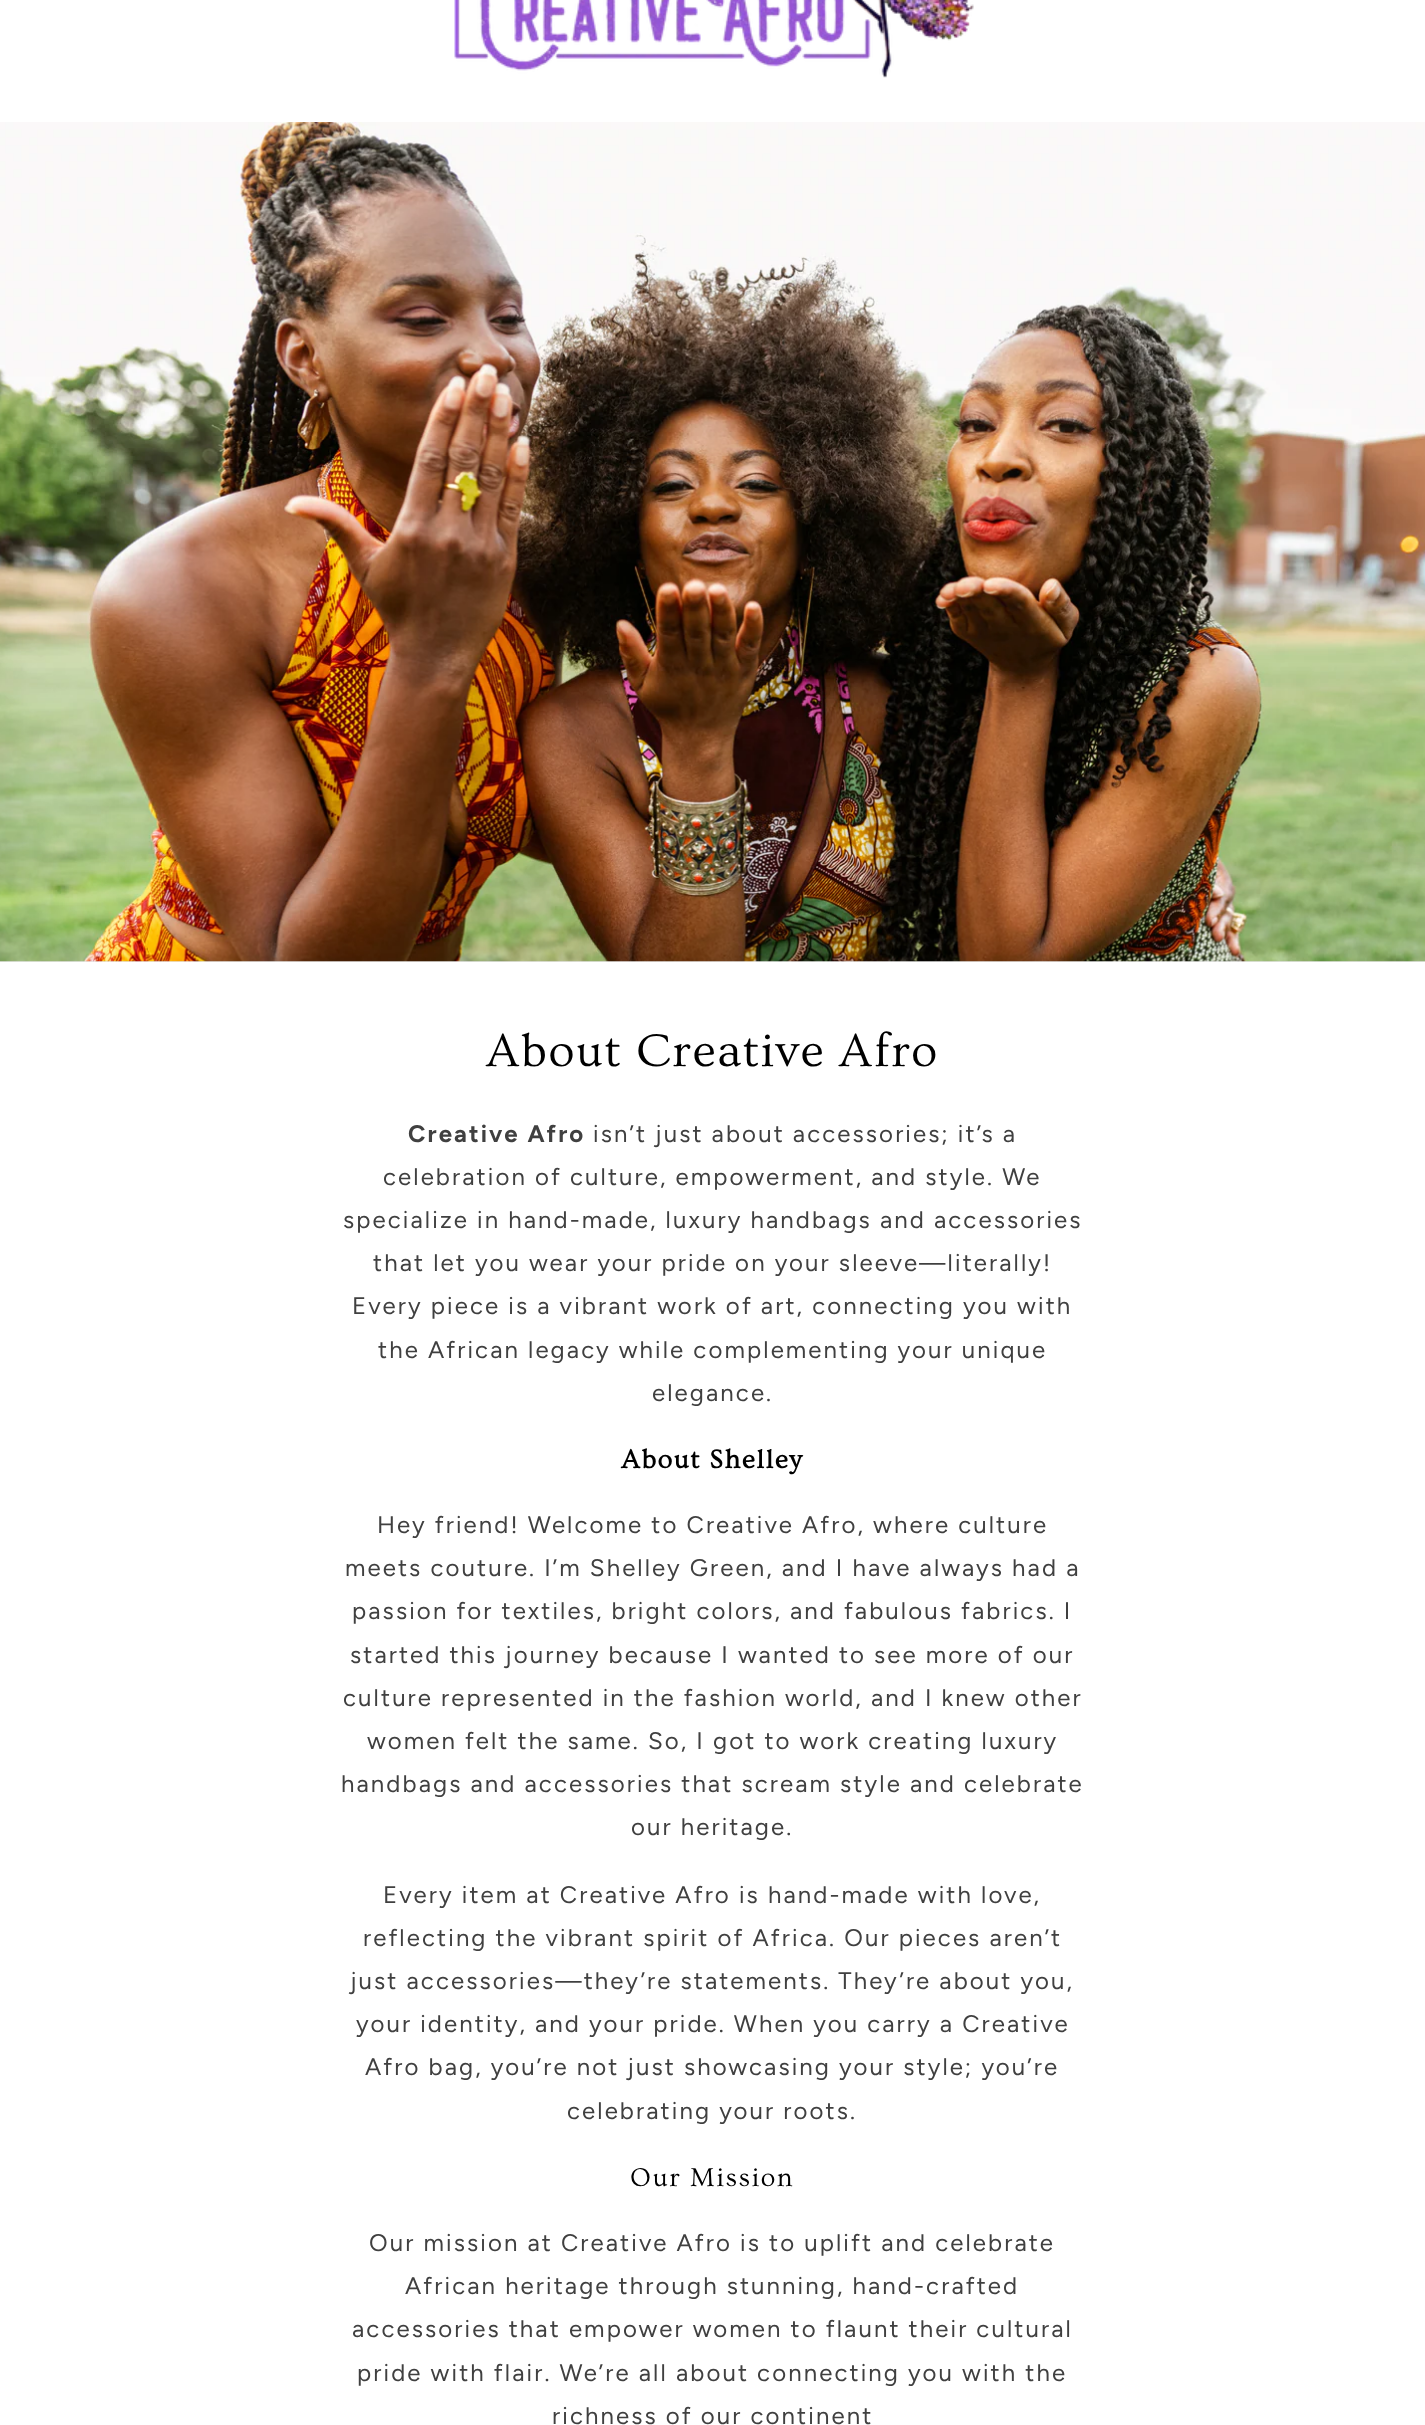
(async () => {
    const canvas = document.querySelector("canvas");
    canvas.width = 1425;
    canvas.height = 2425;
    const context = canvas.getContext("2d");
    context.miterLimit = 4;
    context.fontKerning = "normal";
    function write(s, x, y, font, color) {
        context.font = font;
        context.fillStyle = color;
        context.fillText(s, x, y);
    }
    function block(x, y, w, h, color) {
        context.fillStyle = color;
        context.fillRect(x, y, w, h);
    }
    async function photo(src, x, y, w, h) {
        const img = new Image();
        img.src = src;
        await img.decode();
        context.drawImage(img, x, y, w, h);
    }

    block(0, 0, 1425, 2425, "rgb(255, 255, 255)");
    await photo("media/1.png", 454, 0, 520, 78);
    block(0, 961, 1425, 1, "rgb(230, 230, 230)");
    await photo("media/2.png", 0, 122, 1425, 840);
    context.letterSpacing = "1.5px";
    write("About Creative Afro", 486, 1066, "48px Ovo", "rgb(0, 0, 0)");
    context.letterSpacing = "2.1px";
    write("Creative Afro", 408, 1142, "bold 24px Figtree", "rgb(64, 64, 64)");
    write("isn’t just about accessories; it’s a", 593, 1142, "24px Figtree", "rgb(64, 64, 64)");
    write("celebration of culture, empowerment, and style. We", 383, 1185, "24px Figtree", "rgb(64, 64, 64)");
    write("specialize in hand-made, luxury handbags and accessories", 343, 1228, "24px Figtree", "rgb(64, 64, 64)");
    write("that let you wear your pride on your sleeve—literally!", 373, 1271, "24px Figtree", "rgb(64, 64, 64)");
    write("Every piece is a vibrant work of art, connecting you with", 352, 1314, "24px Figtree", "rgb(64, 64, 64)");
    write("the African legacy while complementing your unique", 378, 1358, "24px Figtree", "rgb(64, 64, 64)");
    write("elegance.", 652, 1401, "24px Figtree", "rgb(64, 64, 64)");
    context.letterSpacing = "1.5px";
    write("About Shelley", 621, 1468, "bold 27px Ovo", "rgb(0, 0, 0)");
    context.letterSpacing = "2.1px";
    write("Hey friend! Welcome to Creative Afro, where culture", 377, 1533, "24px Figtree", "rgb(64, 64, 64)");
    write("meets couture. I’m Shelley Green, and I have always had a", 345, 1576, "24px Figtree", "rgb(64, 64, 64)");
    write("passion for textiles, bright colors, and fabulous fabrics. I", 352, 1619, "24px Figtree", "rgb(64, 64, 64)");
    write("started this journey because I wanted to see more of our", 350, 1663, "24px Figtree", "rgb(64, 64, 64)");
    write("culture represented in the fashion world, and I knew other", 343, 1706, "24px Figtree", "rgb(64, 64, 64)");
    write("women felt the same. So, I got to work creating luxury", 367, 1749, "24px Figtree", "rgb(64, 64, 64)");
    write("handbags and accessories that scream style and celebrate", 341, 1792, "24px Figtree", "rgb(64, 64, 64)");
    write("our heritage.", 631, 1835, "24px Figtree", "rgb(64, 64, 64)");
    write("Every item at Creative Afro is hand-made with love,", 383, 1903, "24px Figtree", "rgb(64, 64, 64)");
    write("reflecting the vibrant spirit of Africa. Our pieces aren’t", 363, 1946, "24px Figtree", "rgb(64, 64, 64)");
    write("just accessories—they’re statements. They’re about you,", 350, 1989, "24px Figtree", "rgb(64, 64, 64)");
    write("your identity, and your pride. When you carry a Creative", 356, 2032, "24px Figtree", "rgb(64, 64, 64)");
    write("Afro bag, you’re not just showcasing your style; you’re", 365, 2075, "24px Figtree", "rgb(64, 64, 64)");
    write("celebrating your roots.", 567, 2119, "24px Figtree", "rgb(64, 64, 64)");
    context.letterSpacing = "1.5px";
    write("Our Mission", 630, 2186, "27px Ovo", "rgb(0, 0, 0)");
    context.letterSpacing = "2.1px";
    write("Our mission at Creative Afro is to uplift and celebrate", 369, 2251, "24px Figtree", "rgb(64, 64, 64)");
    write("African heritage through stunning, hand-crafted", 405, 2294, "24px Figtree", "rgb(64, 64, 64)");
    write("accessories that empower women to flaunt their cultural", 352, 2337, "24px Figtree", "rgb(64, 64, 64)");
    write("pride with flair. We’re all about connecting you with the", 357, 2381, "24px Figtree", "rgb(64, 64, 64)");
    write("richness of our continent", 552, 2424, "24px Figtree", "rgb(64, 64, 64)");
})();
